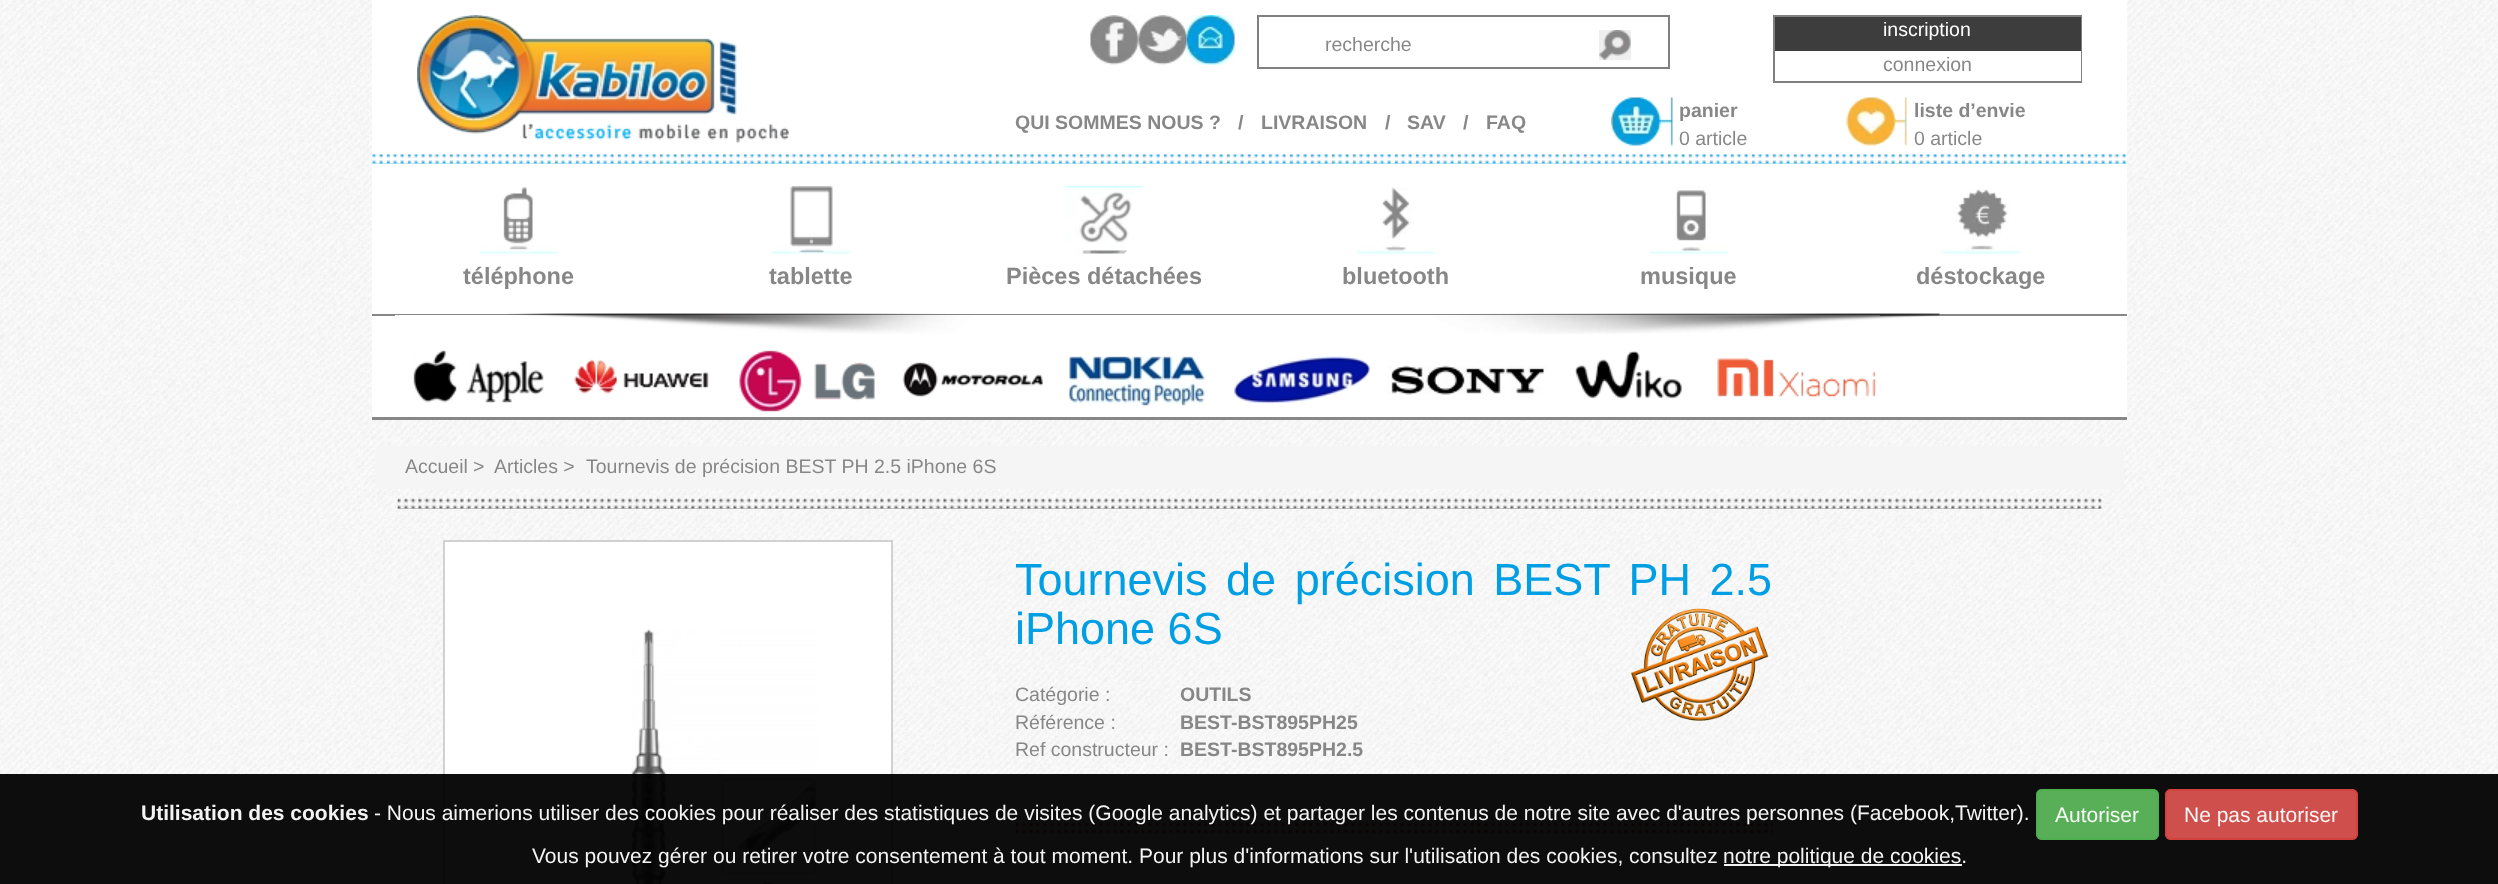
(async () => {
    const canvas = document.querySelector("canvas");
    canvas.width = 2498;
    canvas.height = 884;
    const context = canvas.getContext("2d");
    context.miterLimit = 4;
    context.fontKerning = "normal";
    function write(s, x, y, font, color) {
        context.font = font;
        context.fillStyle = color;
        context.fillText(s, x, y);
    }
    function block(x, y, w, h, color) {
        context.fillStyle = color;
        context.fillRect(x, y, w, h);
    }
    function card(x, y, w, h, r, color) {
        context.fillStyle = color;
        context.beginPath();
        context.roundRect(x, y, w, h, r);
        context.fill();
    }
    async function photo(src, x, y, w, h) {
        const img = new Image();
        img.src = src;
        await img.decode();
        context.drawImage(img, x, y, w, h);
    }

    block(0, 0, 2498, 884, "rgb(255, 255, 255)");
    await photo("media/1.png", 0, 0, 2498, 884);
    block(372, 0, 1755, 417, "rgb(255, 255, 255)");
    block(372, 417, 1755, 3, "rgb(135, 135, 135)");
    await photo("media/2.png", 417, 15, 372, 128);
    await photo("media/3.png", 1090, 15, 49, 50);
    await photo("media/4.png", 1138, 15, 49, 50);
    await photo("media/5.png", 1186, 15, 49, 50);
    context.strokeStyle = "rgb(128, 128, 128)";
    context.lineWidth = 2;
    context.strokeRect(1258, 16, 411, 52);
    write("recherche", 1325, 51, "19.5px Liberation Sans", "rgb(135, 135, 135)");
    block(1599, 30, 32, 30, "rgb(239, 239, 239)");
    await photo("media/6.png", 1599, 30, 32, 30);
    context.strokeRect(1774, 16, 307, 66);
    block(1775, 17, 306, 34, "rgb(61, 61, 61)");
    write("inscription", 1883, 36, "19.5px Liberation Sans", "rgb(255, 255, 255)");
    block(2080, 51, 1, 30, "rgb(255, 255, 255)");
    write("connexion", 1883, 71, "19.5px Liberation Sans", "rgb(135, 135, 135)");
    write("QUI SOMMES NOUS ?", 1015, 129, "bold 19.5px Liberation Sans", "rgb(135, 135, 135)");
    write("/", 1238, 129, "bold 19.5px Liberation Sans", "rgb(135, 135, 135)");
    write("LIVRAISON", 1261, 129, "bold 19.5px Liberation Sans", "rgb(135, 135, 135)");
    write("/", 1385, 129, "bold 19.5px Liberation Sans", "rgb(135, 135, 135)");
    write("SAV", 1407, 129, "bold 19.5px Liberation Sans", "rgb(135, 135, 135)");
    write("/", 1463, 129, "bold 19.5px Liberation Sans", "rgb(135, 135, 135)");
    write("FAQ", 1486, 129, "bold 19.5px Liberation Sans", "rgb(135, 135, 135)");
    await photo("media/7.png", 1611, 97, 62, 49);
    write("panier", 1679, 117, "bold 19.5px Liberation Sans", "rgb(135, 135, 135)");
    write("0 article", 1679, 145, "19.5px Liberation Sans", "rgb(135, 135, 135)");
    await photo("media/8.png", 1846, 97, 61, 49);
    write("liste d’envie", 1914, 117, "bold 19.5px Liberation Sans", "rgb(135, 135, 135)");
    write("0 article", 1914, 145, "19.5px Liberation Sans", "rgb(135, 135, 135)");
    await photo("media/9.png", 372, 154, 1755, 10);
    block(372, 314, 1755, 2, "rgb(135, 135, 133)");
    await photo("media/10.png", 480, 187, 78, 67);
    write("téléphone", 463, 284, "bold 23.5px Liberation Sans", "rgb(135, 135, 135)");
    await photo("media/11.png", 772, 186, 79, 68);
    write("tablette", 769, 284, "bold 23.5px Liberation Sans", "rgb(135, 135, 135)");
    await photo("media/12.png", 1065, 186, 78, 68);
    write("Pièces détachées", 1006, 284, "bold 23.5px Liberation Sans", "rgb(135, 135, 135)");
    await photo("media/13.png", 1357, 187, 79, 67);
    write("bluetooth", 1342, 284, "bold 23.5px Liberation Sans", "rgb(135, 135, 135)");
    await photo("media/14.png", 1650, 186, 78, 68);
    write("musique", 1640, 284, "bold 23.5px Liberation Sans", "rgb(135, 135, 135)");
    await photo("media/15.png", 1942, 189, 79, 65);
    write("déstockage", 1916, 284, "bold 23.5px Liberation Sans", "rgb(135, 135, 135)");
    block(395, 315, 1485, 1, "rgb(255, 255, 255)");
    await photo("media/16.png", 507, 313, 1433, 21);
    await photo("media/17.png", 413, 350, 131, 53);
    await photo("media/18.png", 574, 359, 135, 35);
    await photo("media/19.png", 739, 350, 136, 62);
    await photo("media/20.png", 902, 362, 141, 35);
    await photo("media/21.png", 1069, 356, 136, 50);
    await photo("media/22.png", 1234, 356, 138, 48);
    await photo("media/23.png", 1388, 365, 159, 30);
    await photo("media/24.png", 1575, 351, 107, 48);
    await photo("media/25.png", 1717, 358, 159, 40);
    card(375, 446, 1749, 43, 6, "rgb(245, 245, 245)");
    write("Accueil", 405, 473, "19.5px Liberation Sans", "rgb(135, 135, 135)");
    write(">", 473, 473, "19.5px Liberation Sans", "rgb(135, 135, 135)");
    write("Articles >", 494, 473, "19.5px Liberation Sans", "rgb(135, 135, 135)");
    write("Tournevis de précision BEST PH 2.5 iPhone 6S", 586, 473, "19.5px Liberation Sans", "rgb(135, 135, 135)");
    await photo("media/26.png", 397, 498, 1705, 11);
    await photo("media/27.png", 397, 540, 1421, 344);
    context.fillStyle = "rgb(255, 255, 255)";
    context.beginPath();
    context.rect(444, 541, 448, 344);
    context.fill();
    context.strokeStyle = "rgb(209, 209, 209)";
    context.stroke();
    await photo("media/28.png", 631, 629, 187, 255);
    context.wordSpacing = "6px";
    write("Tournevis de précision BEST PH 2.5", 1015, 595, "45px Liberation Sans", "rgb(0, 159, 228)");
    context.wordSpacing = "0px";
    write("iPhone 6S", 1015, 644, "45px Liberation Sans", "rgb(0, 159, 228)");
    write("Catégorie :", 1015, 701, "19.5px Liberation Sans", "rgb(135, 135, 135)");
    write("OUTILS", 1180, 701, "bold 19.5px Liberation Sans", "rgb(135, 135, 135)");
    await photo("media/29.png", 1630, 608, 139, 113);
    write("Référence :", 1015, 729, "19.5px Liberation Sans", "rgb(135, 135, 135)");
    write("BEST-BST895PH25", 1180, 729, "bold 19.5px Liberation Sans", "rgb(135, 135, 135)");
    write("Ref constructeur :", 1015, 756, "19.5px Liberation Sans", "rgb(135, 135, 135)");
    write("BEST-BST895PH2.5", 1180, 756, "bold 19.5px Liberation Sans", "rgb(135, 135, 135)");
    await photo("media/30.png", 1015, 822, 758, 12);
    block(0, 774, 2498, 110, "rgba(0, 0, 0, 0.95)");
    write("Utilisation des cookies", 141, 820, "bold 21px Liberation Sans", "rgb(243, 243, 243)");
    write("- Nous aimerions utiliser des cookies pour réaliser des statistiques de visites (Google analytics) et partager les contenus de notre site avec d'autres personnes (Facebook,Twitter).", 374, 820, "21px Liberation Sans", "rgb(243, 243, 243)");
    card(2036, 789, 123, 51, 6, "rgb(88, 175, 88)");
    context.beginPath();
    context.roundRect(2037, 790, 121, 49, 5);
    context.strokeStyle = "rgba(76, 174, 76, 0.95)";
    context.stroke();
    write("Autoriser", 2055, 822, "21px Liberation Sans", "rgb(247, 251, 247)");
    card(2165, 789, 193, 51, 6, "rgb(207, 79, 76)");
    context.beginPath();
    context.roundRect(2166, 790, 191, 49, 5);
    context.strokeStyle = "rgba(212, 63, 58, 0.95)";
    context.stroke();
    write("Ne pas autoriser", 2184, 822, "21px Liberation Sans", "rgb(253, 246, 246)");
    write("Vous pouvez gérer ou retirer votre consentement à tout moment. Pour plus d'informations sur l'utilisation des cookies, consultez", 532, 863, "21px Liberation Sans", "rgb(243, 243, 243)");
    block(1724, 864, 238, 2, "rgb(243, 243, 243)");
    write("notre politique de cookies.", 1723, 863, "21px Liberation Sans", "rgb(243, 243, 243)");
})();
